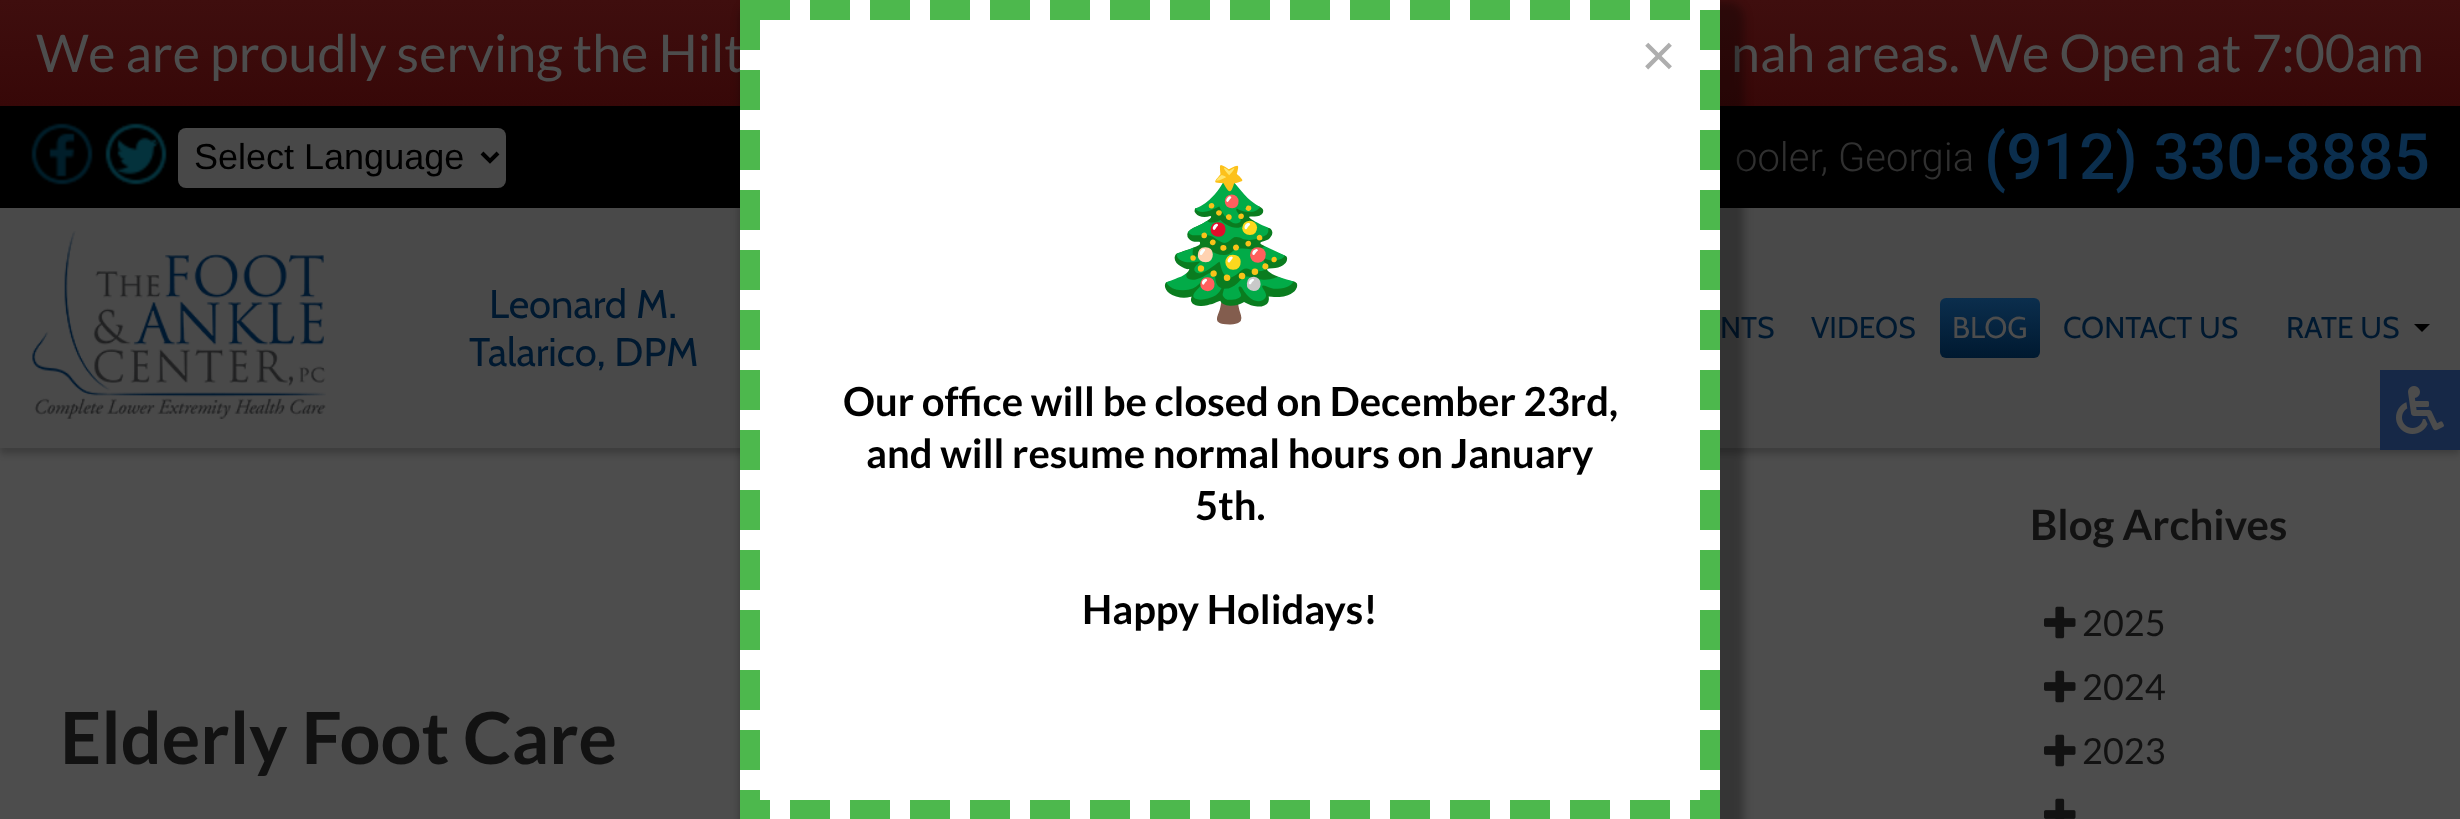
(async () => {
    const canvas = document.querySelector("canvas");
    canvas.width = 2460;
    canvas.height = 819;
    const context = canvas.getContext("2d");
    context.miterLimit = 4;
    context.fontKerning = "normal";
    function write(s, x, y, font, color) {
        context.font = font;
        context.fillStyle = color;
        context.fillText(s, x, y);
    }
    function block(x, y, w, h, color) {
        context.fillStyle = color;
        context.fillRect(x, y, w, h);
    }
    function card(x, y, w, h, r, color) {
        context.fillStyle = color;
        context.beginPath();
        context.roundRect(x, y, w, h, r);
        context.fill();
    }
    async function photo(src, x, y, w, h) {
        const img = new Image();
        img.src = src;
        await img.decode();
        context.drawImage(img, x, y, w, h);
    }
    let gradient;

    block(0, 0, 2460, 819, "rgb(77, 77, 77)");
    context.fillStyle = "rgba(0, 0, 0, 0.2)";
    context.filter = "blur(3px)";
    context.beginPath();
    context.rect(0, 6, 2460, 448);
    context.fill();
    context.filter = "none";
    block(0, 208, 2460, 240, "rgb(73, 73, 73)");
    gradient = context.createLinearGradient(1230, 0, 1230, 106);
    gradient.addColorStop(0, "rgb(63, 14, 14)");
    gradient.addColorStop(1, "rgb(55, 8, 8)");
    context.fillStyle = gradient;
    context.fillRect(0, 0, 2460, 106);
    write("We are proudly serving the Hilt", 36, 72, "52px Lato", "rgb(77, 77, 77)");
    write("nah areas. We Open at 7:00am", 1731, 72, "52px Lato", "rgb(77, 77, 77)");
    block(0, 106, 2460, 102, "rgb(0, 0, 0)");
    await photo("media/1.png", 31, 123, 62, 62);
    await photo("media/2.png", 105, 123, 62, 62);
    card(178, 128, 328, 60, 8, "rgb(72, 72, 72)");
    context.beginPath();
    context.moveTo(482, 153);
    context.lineTo(490, 161);
    context.lineTo(498, 153);
    context.strokeStyle = "rgb(0, 0, 0)";
    context.lineWidth = 4;
    context.stroke();
    write("Select Language", 194, 169, "36px Liberation Sans", "rgb(0, 0, 0)");
    write("ooler, Georgia", 1735, 171, "300 40px Roboto", "rgb(48, 48, 48)");
    write("(912) 330-8885", 1984, 179, "500 64px Roboto", "rgb(11, 46, 77)");
    await photo("media/3.png", 32, 231, 294, 188);
    write("Leonard M.", 489, 318, "40px Cabin", "rgb(0, 25, 48)");
    write("Talarico, DPM", 469, 366, "40px Cabin", "rgb(0, 25, 48)");
    write("NTS", 1720, 338, "30px Cabin", "rgb(0, 25, 48)");
    write("VIDEOS", 1811, 338, "30px Cabin", "rgb(0, 25, 48)");
    gradient = context.createLinearGradient(1990, 298, 1990, 358);
    gradient.addColorStop(0, "rgb(11, 46, 77)");
    gradient.addColorStop(1, "rgb(0, 25, 48)");
    context.fillStyle = gradient;
    context.beginPath();
    context.roundRect(1940, 298, 100, 60, 6);
    context.fill();
    write("BLOG", 1952, 338, "30px Cabin", "rgb(77, 77, 77)");
    write("CONTACT US", 2063, 338, "30px Cabin", "rgb(0, 25, 48)");
    write("RATE US", 2286, 338, "30px Cabin", "rgb(0, 25, 48)");
    context.fillStyle = "rgb(0, 0, 0)";
    context.beginPath();
    context.moveTo(2414, 324);
    context.lineTo(2430, 324);
    context.lineTo(2422, 332);
    context.closePath();
    context.fill();
    context.fillStyle = "rgba(0, 0, 1, 0.3)";
    context.filter = "blur(4px)";
    context.beginPath();
    context.roundRect(740, 2, 1004, 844, 16);
    context.fill();
    context.filter = "none";
    block(740, 0, 980, 819, "rgb(255, 255, 255)");
    context.beginPath();
    context.moveTo(750, 10);
    context.lineTo(1710, 10);
    context.lineTo(1710, 810);
    context.lineTo(750, 810);
    context.closePath();
    context.strokeStyle = "rgb(77, 184, 77)";
    context.lineWidth = 20;
    context.setLineDash([40, 20]);
    context.stroke();
    write("×", 1641, 76, "60px Liberation Sans", "rgb(174, 174, 174)");
    write("🎄", 1140, 294, "144px Noto Color Emoji", "rgb(0, 0, 0)");
    write("Our office will be closed on December 23rd,", 843, 416, "bold 40px Lato", "rgb(0, 0, 0)");
    write("and will resume normal hours on January", 866, 468, "bold 40px Lato", "rgb(0, 0, 0)");
    write("5th.", 1195, 520, "bold 40px Lato", "rgb(0, 0, 0)");
    write("Happy Holidays!", 1082, 624, "bold 40px Lato", "rgb(0, 0, 0)");
    block(2380, 370, 80, 80, "rgb(22, 40, 71)");
    await photo("media/4.png", 2396, 386, 48, 48);
    write("Elderly Foot Care", 60, 764, "bold 72px Lato", "rgb(18, 18, 18)");
    write("Blog Archives", 2030, 540, "bold 42px Lato", "rgb(18, 18, 18)");
    await photo("media/5.png", 2044, 606, 32, 33);
    write("2025", 2082, 636, "36px Lato", "rgb(18, 18, 18)");
    await photo("media/5.png", 2044, 670, 32, 33);
    write("2024", 2082, 700, "36px Lato", "rgb(18, 18, 18)");
    await photo("media/5.png", 2044, 734, 32, 33);
    write("2023", 2082, 764, "36px Lato", "rgb(18, 18, 18)");
    await photo("media/6.png", 2044, 798, 32, 21);
})();
